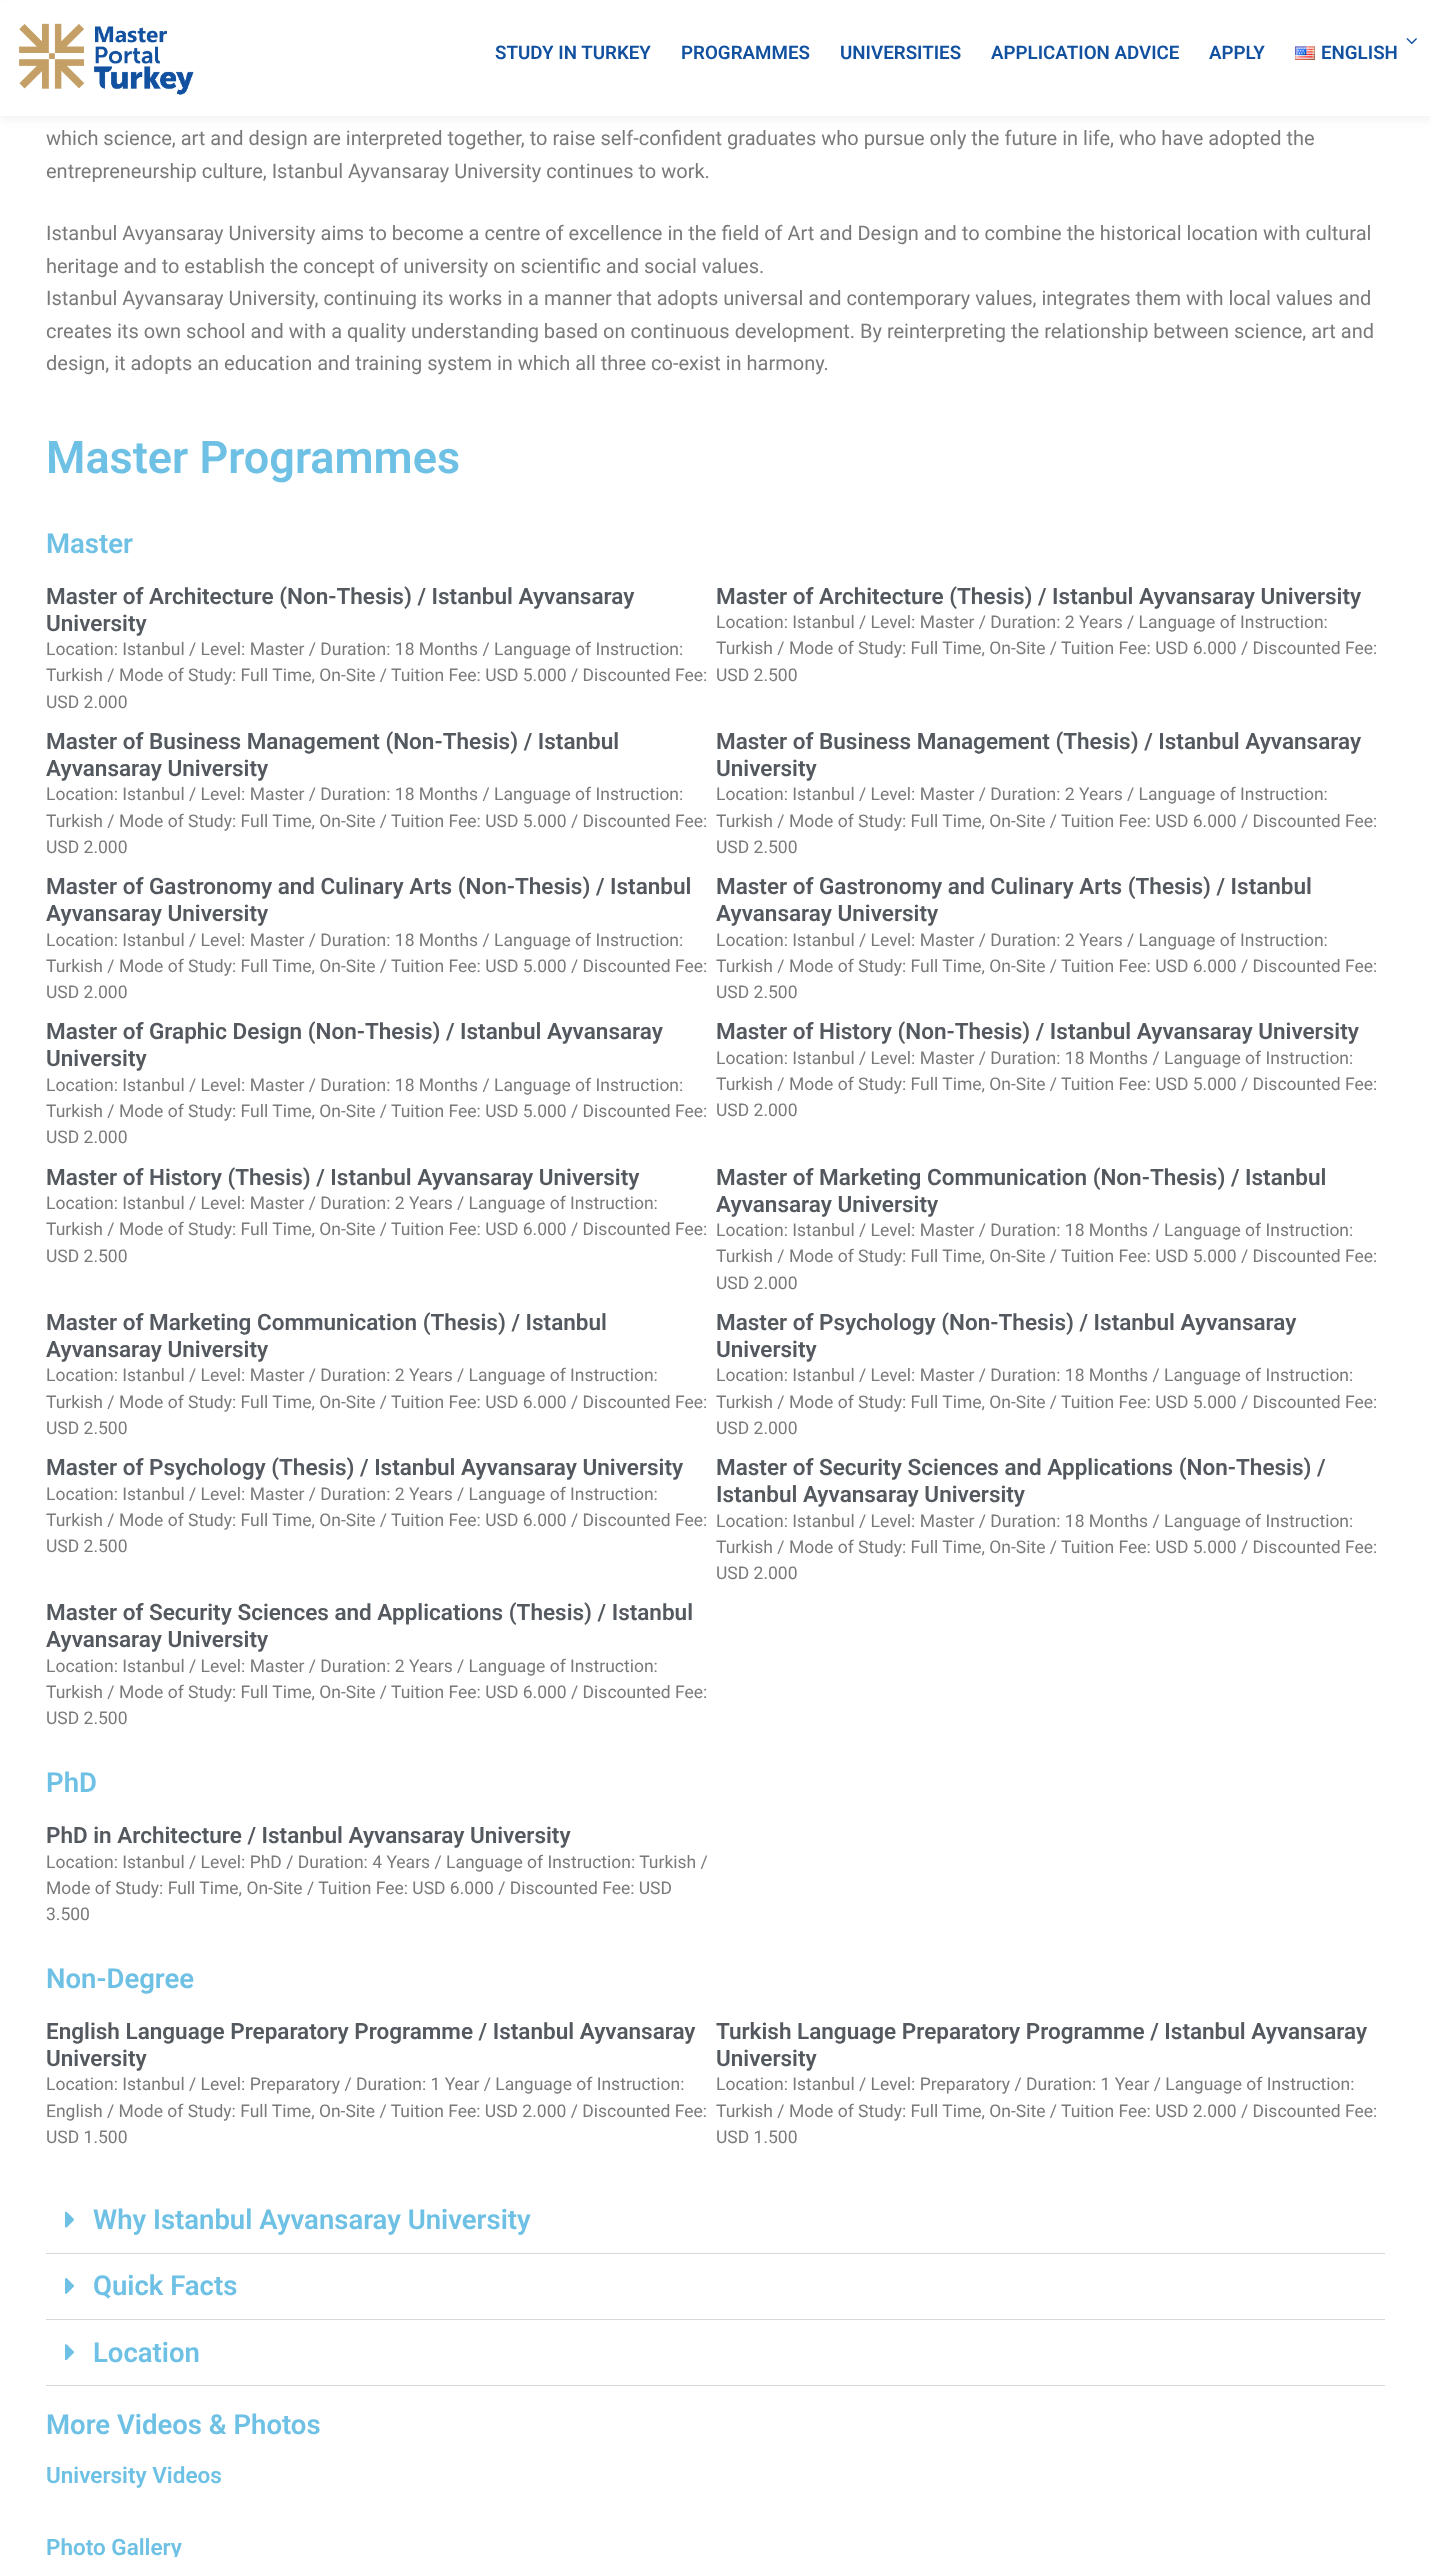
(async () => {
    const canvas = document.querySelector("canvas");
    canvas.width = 1431;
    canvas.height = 2557;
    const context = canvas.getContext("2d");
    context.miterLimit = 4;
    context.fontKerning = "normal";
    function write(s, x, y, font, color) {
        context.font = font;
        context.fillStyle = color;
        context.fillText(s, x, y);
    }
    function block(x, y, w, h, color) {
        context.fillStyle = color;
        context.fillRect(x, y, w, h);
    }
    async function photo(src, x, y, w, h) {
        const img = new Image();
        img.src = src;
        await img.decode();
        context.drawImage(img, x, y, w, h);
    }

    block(0, 0, 1431, 2557, "rgb(255, 255, 255)");
    context.fillStyle = "rgba(128, 128, 128, 0.1)";
    context.filter = "blur(4px)";
    context.beginPath();
    context.rect(0, 4, 1431, 116);
    context.fill();
    context.filter = "none";
    block(0, 1, 1431, 115, "rgb(255, 255, 255)");
    await photo("media/1.png", 19, 23, 175, 72);
    write("STUDY IN TURKEY", 495, 59, "600 18.75px Roboto", "rgb(18, 81, 160)");
    write("PROGRAMMES", 681, 59, "600 18.75px Roboto", "rgb(18, 81, 160)");
    write("UNIVERSITIES", 840, 59, "600 18.75px Roboto", "rgb(18, 81, 160)");
    write("APPLICATION ADVICE", 991, 59, "600 18.75px Roboto", "rgb(18, 81, 160)");
    write("APPLY", 1209, 59, "600 18.75px Roboto", "rgb(18, 81, 160)");
    await photo("media/2.png", 1406, 38, 11, 7);
    await photo("media/3.png", 1295, 46, 20, 14);
    write("ENGLISH", 1321, 59, "600 18.75px Roboto", "rgb(18, 81, 160)");
    write("which science, art and design are interpreted together, to raise self-confident graduates who pursue only the future in life, who have adopted the", 46, 145, "20px Roboto", "rgb(122, 122, 122)");
    write("entrepreneurship culture, Istanbul Ayvansaray University continues to work.", 46, 178, "20px Roboto", "rgb(122, 122, 122)");
    write("Istanbul Avyansaray University aims to become a centre of excellence in the field of Art and Design and to combine the historical location with cultural", 46, 240, "20px Roboto", "rgb(122, 122, 122)");
    write("heritage and to establish the concept of university on scientific and social values.", 46, 273, "20px Roboto", "rgb(122, 122, 122)");
    write("Istanbul Ayvansaray University, continuing its works in a manner that adopts universal and contemporary values, integrates them with local values and", 46, 305, "20px Roboto", "rgb(122, 122, 122)");
    write("creates its own school and with a quality understanding based on continuous development. By reinterpreting the relationship between science, art and", 46, 338, "20px Roboto", "rgb(122, 122, 122)");
    write("design, it adopts an education and training system in which all three co-exist in harmony.", 46, 370, "20px Roboto", "rgb(122, 122, 122)");
    write("Master Programmes", 46, 473, "600 45px Roboto", "rgb(110, 193, 228)");
    write("Master", 46, 553, "600 27.5px Roboto", "rgb(110, 193, 228)");
    write("Master of Architecture (Non-Thesis) / Istanbul Ayvansaray", 46, 604, "600 22.5px Roboto", "rgb(84, 89, 95)");
    write("University", 46, 631, "600 22.5px Roboto", "rgb(84, 89, 95)");
    write("Location: Istanbul / Level: Master / Duration: 18 Months / Language of Instruction:", 46, 655, "17.5px Roboto", "rgb(122, 122, 122)");
    write("Turkish / Mode of Study: Full Time, On-Site / Tuition Fee: USD 5.000 / Discounted Fee:", 46, 681, "17.5px Roboto", "rgb(122, 122, 122)");
    write("USD 2.000", 46, 708, "17.5px Roboto", "rgb(122, 122, 122)");
    write("Master of Architecture (Thesis) / Istanbul Ayvansaray University", 716, 604, "600 22.5px Roboto", "rgb(84, 89, 95)");
    write("Location: Istanbul / Level: Master / Duration: 2 Years / Language of Instruction:", 716, 628, "17.5px Roboto", "rgb(122, 122, 122)");
    write("Turkish / Mode of Study: Full Time, On-Site / Tuition Fee: USD 6.000 / Discounted Fee:", 716, 654, "17.5px Roboto", "rgb(122, 122, 122)");
    write("USD 2.500", 716, 681, "17.5px Roboto", "rgb(122, 122, 122)");
    write("Master of Business Management (Non-Thesis) / Istanbul", 46, 749, "600 22.5px Roboto", "rgb(84, 89, 95)");
    write("Ayvansaray University", 46, 776, "600 22.5px Roboto", "rgb(84, 89, 95)");
    write("Location: Istanbul / Level: Master / Duration: 18 Months / Language of Instruction:", 46, 800, "17.5px Roboto", "rgb(122, 122, 122)");
    write("Turkish / Mode of Study: Full Time, On-Site / Tuition Fee: USD 5.000 / Discounted Fee:", 46, 827, "17.5px Roboto", "rgb(122, 122, 122)");
    write("USD 2.000", 46, 853, "17.5px Roboto", "rgb(122, 122, 122)");
    write("Master of Business Management (Thesis) / Istanbul Ayvansaray", 716, 749, "600 22.5px Roboto", "rgb(84, 89, 95)");
    write("University", 716, 776, "600 22.5px Roboto", "rgb(84, 89, 95)");
    write("Location: Istanbul / Level: Master / Duration: 2 Years / Language of Instruction:", 716, 800, "17.5px Roboto", "rgb(122, 122, 122)");
    write("Turkish / Mode of Study: Full Time, On-Site / Tuition Fee: USD 6.000 / Discounted Fee:", 716, 827, "17.5px Roboto", "rgb(122, 122, 122)");
    write("USD 2.500", 716, 853, "17.5px Roboto", "rgb(122, 122, 122)");
    write("Master of Gastronomy and Culinary Arts (Non-Thesis) / Istanbul", 46, 894, "600 22.5px Roboto", "rgb(84, 89, 95)");
    write("Ayvansaray University", 46, 921, "600 22.5px Roboto", "rgb(84, 89, 95)");
    write("Location: Istanbul / Level: Master / Duration: 18 Months / Language of Instruction:", 46, 946, "17.5px Roboto", "rgb(122, 122, 122)");
    write("Turkish / Mode of Study: Full Time, On-Site / Tuition Fee: USD 5.000 / Discounted Fee:", 46, 972, "17.5px Roboto", "rgb(122, 122, 122)");
    write("USD 2.000", 46, 998, "17.5px Roboto", "rgb(122, 122, 122)");
    write("Master of Gastronomy and Culinary Arts (Thesis) / Istanbul", 716, 894, "600 22.5px Roboto", "rgb(84, 89, 95)");
    write("Ayvansaray University", 716, 921, "600 22.5px Roboto", "rgb(84, 89, 95)");
    write("Location: Istanbul / Level: Master / Duration: 2 Years / Language of Instruction:", 716, 946, "17.5px Roboto", "rgb(122, 122, 122)");
    write("Turkish / Mode of Study: Full Time, On-Site / Tuition Fee: USD 6.000 / Discounted Fee:", 716, 972, "17.5px Roboto", "rgb(122, 122, 122)");
    write("USD 2.500", 716, 998, "17.5px Roboto", "rgb(122, 122, 122)");
    write("Master of Graphic Design (Non-Thesis) / Istanbul Ayvansaray", 46, 1039, "600 22.5px Roboto", "rgb(84, 89, 95)");
    write("University", 46, 1066, "600 22.5px Roboto", "rgb(84, 89, 95)");
    write("Location: Istanbul / Level: Master / Duration: 18 Months / Language of Instruction:", 46, 1091, "17.5px Roboto", "rgb(122, 122, 122)");
    write("Turkish / Mode of Study: Full Time, On-Site / Tuition Fee: USD 5.000 / Discounted Fee:", 46, 1117, "17.5px Roboto", "rgb(122, 122, 122)");
    write("USD 2.000", 46, 1143, "17.5px Roboto", "rgb(122, 122, 122)");
    write("Master of History (Non-Thesis) / Istanbul Ayvansaray University", 716, 1039, "600 22.5px Roboto", "rgb(84, 89, 95)");
    write("Location: Istanbul / Level: Master / Duration: 18 Months / Language of Instruction:", 716, 1064, "17.5px Roboto", "rgb(122, 122, 122)");
    write("Turkish / Mode of Study: Full Time, On-Site / Tuition Fee: USD 5.000 / Discounted Fee:", 716, 1090, "17.5px Roboto", "rgb(122, 122, 122)");
    write("USD 2.000", 716, 1116, "17.5px Roboto", "rgb(122, 122, 122)");
    write("Master of History (Thesis) / Istanbul Ayvansaray University", 46, 1185, "600 22.5px Roboto", "rgb(84, 89, 95)");
    write("Location: Istanbul / Level: Master / Duration: 2 Years / Language of Instruction:", 46, 1209, "17.5px Roboto", "rgb(122, 122, 122)");
    write("Turkish / Mode of Study: Full Time, On-Site / Tuition Fee: USD 6.000 / Discounted Fee:", 46, 1235, "17.5px Roboto", "rgb(122, 122, 122)");
    write("USD 2.500", 46, 1262, "17.5px Roboto", "rgb(122, 122, 122)");
    write("Master of Marketing Communication (Non-Thesis) / Istanbul", 716, 1185, "600 22.5px Roboto", "rgb(84, 89, 95)");
    write("Ayvansaray University", 716, 1212, "600 22.5px Roboto", "rgb(84, 89, 95)");
    write("Location: Istanbul / Level: Master / Duration: 18 Months / Language of Instruction:", 716, 1236, "17.5px Roboto", "rgb(122, 122, 122)");
    write("Turkish / Mode of Study: Full Time, On-Site / Tuition Fee: USD 5.000 / Discounted Fee:", 716, 1262, "17.5px Roboto", "rgb(122, 122, 122)");
    write("USD 2.000", 716, 1289, "17.5px Roboto", "rgb(122, 122, 122)");
    write("Master of Marketing Communication (Thesis) / Istanbul", 46, 1330, "600 22.5px Roboto", "rgb(84, 89, 95)");
    write("Ayvansaray University", 46, 1357, "600 22.5px Roboto", "rgb(84, 89, 95)");
    write("Location: Istanbul / Level: Master / Duration: 2 Years / Language of Instruction:", 46, 1381, "17.5px Roboto", "rgb(122, 122, 122)");
    write("Turkish / Mode of Study: Full Time, On-Site / Tuition Fee: USD 6.000 / Discounted Fee:", 46, 1408, "17.5px Roboto", "rgb(122, 122, 122)");
    write("USD 2.500", 46, 1434, "17.5px Roboto", "rgb(122, 122, 122)");
    write("Master of Psychology (Non-Thesis) / Istanbul Ayvansaray", 716, 1330, "600 22.5px Roboto", "rgb(84, 89, 95)");
    write("University", 716, 1357, "600 22.5px Roboto", "rgb(84, 89, 95)");
    write("Location: Istanbul / Level: Master / Duration: 18 Months / Language of Instruction:", 716, 1381, "17.5px Roboto", "rgb(122, 122, 122)");
    write("Turkish / Mode of Study: Full Time, On-Site / Tuition Fee: USD 5.000 / Discounted Fee:", 716, 1408, "17.5px Roboto", "rgb(122, 122, 122)");
    write("USD 2.000", 716, 1434, "17.5px Roboto", "rgb(122, 122, 122)");
    write("Master of Psychology (Thesis) / Istanbul Ayvansaray University", 46, 1475, "600 22.5px Roboto", "rgb(84, 89, 95)");
    write("Location: Istanbul / Level: Master / Duration: 2 Years / Language of Instruction:", 46, 1500, "17.5px Roboto", "rgb(122, 122, 122)");
    write("Turkish / Mode of Study: Full Time, On-Site / Tuition Fee: USD 6.000 / Discounted Fee:", 46, 1526, "17.5px Roboto", "rgb(122, 122, 122)");
    write("USD 2.500", 46, 1552, "17.5px Roboto", "rgb(122, 122, 122)");
    write("Master of Security Sciences and Applications (Non-Thesis) /", 716, 1475, "600 22.5px Roboto", "rgb(84, 89, 95)");
    write("Istanbul Ayvansaray University", 716, 1502, "600 22.5px Roboto", "rgb(84, 89, 95)");
    write("Location: Istanbul / Level: Master / Duration: 18 Months / Language of Instruction:", 716, 1527, "17.5px Roboto", "rgb(122, 122, 122)");
    write("Turkish / Mode of Study: Full Time, On-Site / Tuition Fee: USD 5.000 / Discounted Fee:", 716, 1553, "17.5px Roboto", "rgb(122, 122, 122)");
    write("USD 2.000", 716, 1579, "17.5px Roboto", "rgb(122, 122, 122)");
    write("Master of Security Sciences and Applications (Thesis) / Istanbul", 46, 1620, "600 22.5px Roboto", "rgb(84, 89, 95)");
    write("Ayvansaray University", 46, 1647, "600 22.5px Roboto", "rgb(84, 89, 95)");
    write("Location: Istanbul / Level: Master / Duration: 2 Years / Language of Instruction:", 46, 1672, "17.5px Roboto", "rgb(122, 122, 122)");
    write("Turkish / Mode of Study: Full Time, On-Site / Tuition Fee: USD 6.000 / Discounted Fee:", 46, 1698, "17.5px Roboto", "rgb(122, 122, 122)");
    write("USD 2.500", 46, 1724, "17.5px Roboto", "rgb(122, 122, 122)");
    write("PhD", 46, 1792, "600 27.5px Roboto", "rgb(110, 193, 228)");
    write("PhD in Architecture / Istanbul Ayvansaray University", 46, 1843, "600 22.5px Roboto", "rgb(84, 89, 95)");
    write("Location: Istanbul / Level: PhD / Duration: 4 Years / Language of Instruction: Turkish /", 46, 1868, "17.5px Roboto", "rgb(122, 122, 122)");
    write("Mode of Study: Full Time, On-Site / Tuition Fee: USD 6.000 / Discounted Fee: USD", 46, 1894, "17.5px Roboto", "rgb(122, 122, 122)");
    write("3.500", 46, 1920, "17.5px Roboto", "rgb(122, 122, 122)");
    write("Non-Degree", 46, 1988, "600 27.5px Roboto", "rgb(110, 193, 228)");
    write("English Language Preparatory Programme / Istanbul Ayvansaray", 46, 2039, "600 22.5px Roboto", "rgb(84, 89, 95)");
    write("University", 46, 2066, "600 22.5px Roboto", "rgb(84, 89, 95)");
    write("Location: Istanbul / Level: Preparatory / Duration: 1 Year / Language of Instruction:", 46, 2090, "17.5px Roboto", "rgb(122, 122, 122)");
    write("English / Mode of Study: Full Time, On-Site / Tuition Fee: USD 2.000 / Discounted Fee:", 46, 2117, "17.5px Roboto", "rgb(122, 122, 122)");
    write("USD 1.500", 46, 2143, "17.5px Roboto", "rgb(122, 122, 122)");
    write("Turkish Language Preparatory Programme / Istanbul Ayvansaray", 716, 2039, "600 22.5px Roboto", "rgb(84, 89, 95)");
    write("University", 716, 2066, "600 22.5px Roboto", "rgb(84, 89, 95)");
    write("Location: Istanbul / Level: Preparatory / Duration: 1 Year / Language of Instruction:", 716, 2090, "17.5px Roboto", "rgb(122, 122, 122)");
    write("Turkish / Mode of Study: Full Time, On-Site / Tuition Fee: USD 2.000 / Discounted Fee:", 716, 2117, "17.5px Roboto", "rgb(122, 122, 122)");
    write("USD 1.500", 716, 2143, "17.5px Roboto", "rgb(122, 122, 122)");
    block(46, 2253, 1339, 1, "rgb(213, 216, 220)");
    await photo("media/4.png", 65, 2211, 9, 17);
    write("Why Istanbul Ayvansaray University", 93, 2229, "600 27.5px Roboto", "rgb(110, 193, 228)");
    block(46, 2319, 1339, 1, "rgb(213, 216, 220)");
    await photo("media/5.png", 65, 2278, 9, 16);
    write("Quick Facts", 93, 2295, "600 27.5px Roboto", "rgb(110, 193, 228)");
    block(46, 2385, 1339, 1, "rgb(213, 216, 220)");
    await photo("media/6.png", 65, 2344, 9, 17);
    write("Location", 93, 2362, "600 27.5px Roboto", "rgb(110, 193, 228)");
    write("More Videos & Photos", 46, 2434, "600 27.5px Roboto", "rgb(110, 193, 228)");
    write("University Videos", 46, 2483, "600 22.5px Roboto", "rgb(110, 193, 228)");
    write("Photo Gallery", 46, 2555, "600 22.5px Roboto", "rgb(110, 193, 228)");
})();
